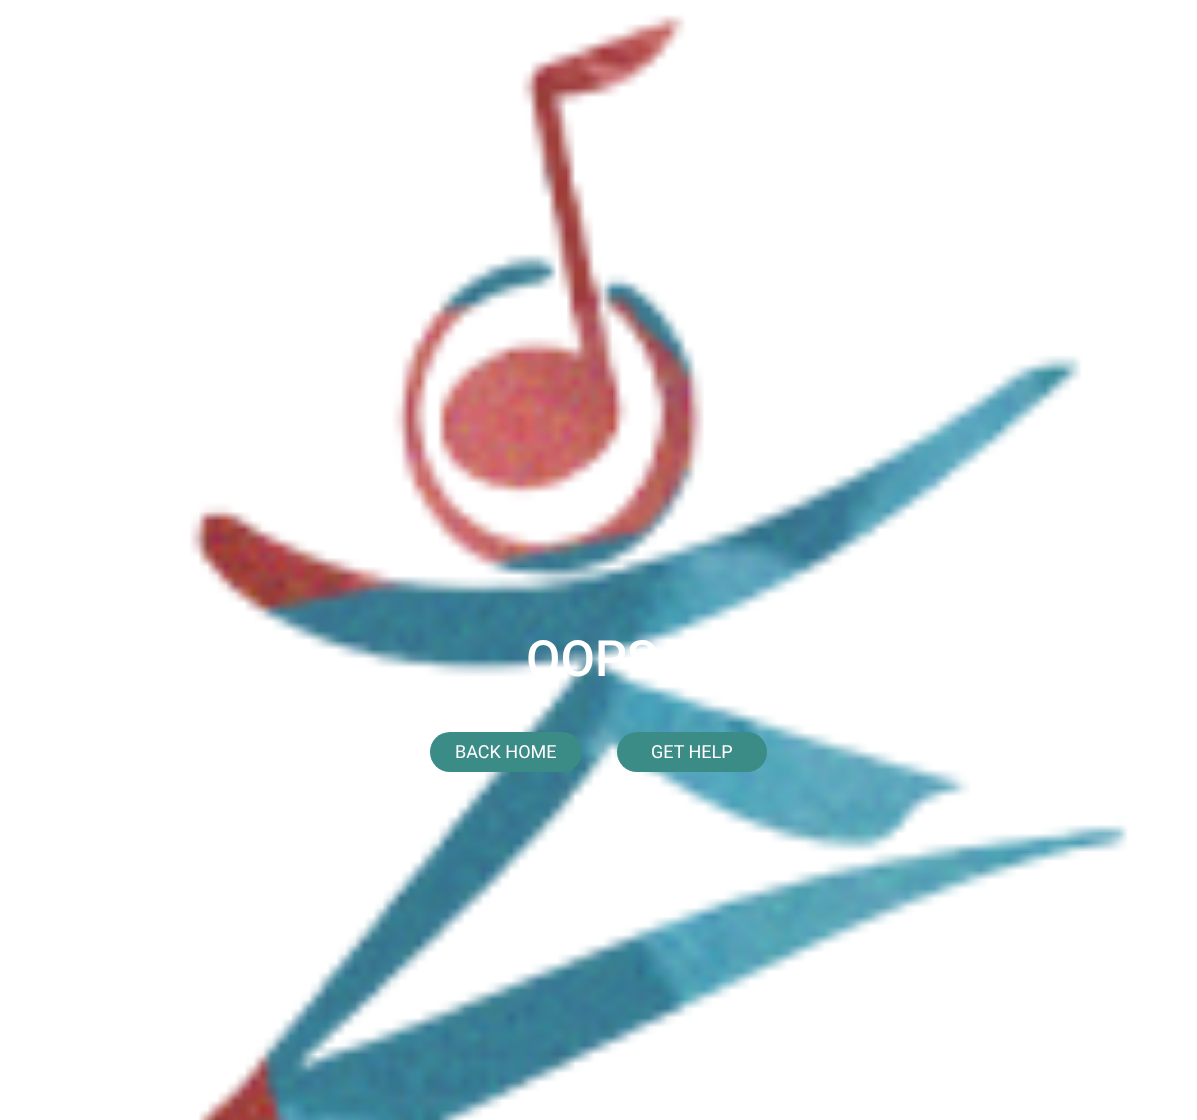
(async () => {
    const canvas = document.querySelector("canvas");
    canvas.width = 1197;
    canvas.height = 1120;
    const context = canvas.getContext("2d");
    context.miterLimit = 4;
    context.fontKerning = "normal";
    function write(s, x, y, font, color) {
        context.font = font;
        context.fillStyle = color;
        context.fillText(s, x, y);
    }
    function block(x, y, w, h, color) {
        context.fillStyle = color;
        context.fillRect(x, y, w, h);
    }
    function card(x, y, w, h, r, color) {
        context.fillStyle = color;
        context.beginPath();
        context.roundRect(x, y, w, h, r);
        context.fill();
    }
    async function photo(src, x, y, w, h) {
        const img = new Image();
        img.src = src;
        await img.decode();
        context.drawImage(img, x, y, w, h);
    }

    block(0, 0, 1197, 1120, "rgb(255, 255, 255)");
    await photo("media/1.png", 190, 14, 938, 1106);
    write("OOPS", 526, 676, "500 50px Roboto", "rgb(255, 255, 255)");
    card(430, 732, 152, 40, 20, "rgb(59, 139, 135)");
    write("BACK HOME", 455, 758, "18px Roboto", "rgb(255, 255, 255)");
    card(617, 732, 150, 40, 20, "rgb(59, 139, 135)");
    write("GET HELP", 651, 758, "18px Roboto", "rgb(255, 255, 255)");
})();
